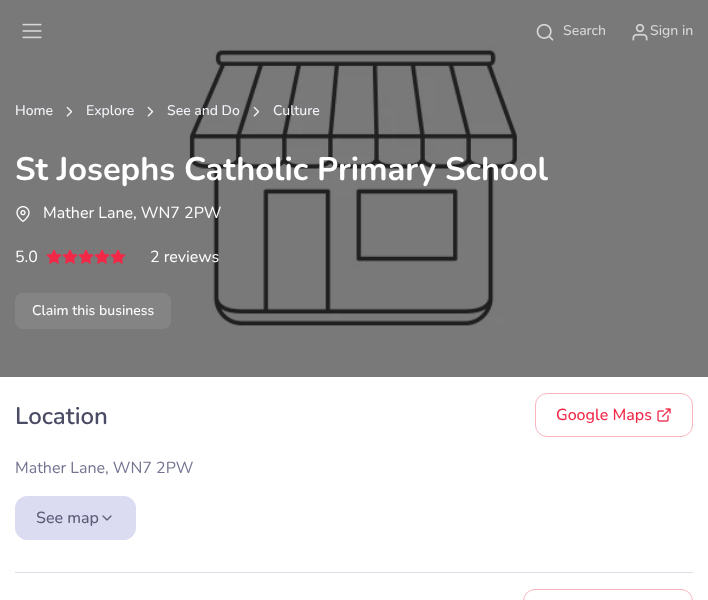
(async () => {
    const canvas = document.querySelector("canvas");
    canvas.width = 708;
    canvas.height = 600;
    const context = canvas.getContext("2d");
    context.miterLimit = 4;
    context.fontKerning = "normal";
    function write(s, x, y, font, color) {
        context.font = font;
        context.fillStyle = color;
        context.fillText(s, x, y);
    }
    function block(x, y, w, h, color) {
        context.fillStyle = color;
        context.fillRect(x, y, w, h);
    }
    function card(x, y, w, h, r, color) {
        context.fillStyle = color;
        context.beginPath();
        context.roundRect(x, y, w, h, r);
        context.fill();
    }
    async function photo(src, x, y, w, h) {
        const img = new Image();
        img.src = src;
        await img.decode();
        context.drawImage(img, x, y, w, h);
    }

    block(0, 0, 708, 600, "rgb(255, 255, 255)");
    await photo("media/4.png", 0, 0, 708, 377);
    await photo("media/1.png", 22, 23, 20, 16);
    await photo("media/2.png", 536, 23, 18, 18);
    write("Search", 563, 35, "500 14px Nunito", "rgb(215, 215, 215)");
    await photo("media/3.png", 632, 24, 16, 17);
    write("Sign in", 650, 35, "500 14px Nunito", "rgb(215, 215, 215)");
    write("Home", 15, 115, "500 14px Nunito", "rgb(243, 243, 249)");
    await photo("media/5.png", 66, 106, 7, 11);
    write("Explore", 86, 115, "500 14px Nunito", "rgb(243, 243, 249)");
    await photo("media/5.png", 147, 106, 7, 11);
    write("See and Do", 167, 115, "500 14px Nunito", "rgb(243, 243, 249)");
    await photo("media/6.png", 253, 106, 7, 11);
    write("Culture", 273, 115, "500 14px Nunito", "rgb(243, 243, 249)");
    write("St Josephs Catholic Primary School", 15, 180, "bold 32.6px Nunito", "rgb(255, 255, 255)");
    await photo("media/7.png", 16, 206, 14, 16);
    write("Mather Lane, WN7 2PW", 43, 218, "16px Nunito", "rgb(255, 255, 255)");
    write("5.0", 15, 262, "16px Nunito", "rgb(255, 255, 255)");
    await photo("media/8.png", 46, 249, 16, 15);
    await photo("media/8.png", 62, 249, 16, 15);
    await photo("media/8.png", 78, 249, 16, 15);
    await photo("media/8.png", 94, 249, 16, 15);
    await photo("media/8.png", 110, 249, 16, 15);
    write("2 reviews", 150, 262, "16px Nunito", "rgb(255, 255, 255)");
    card(15, 293, 156, 36, 8, "rgb(132, 132, 132)");
    write("Claim this business", 32, 315, "500 14px Nunito", "rgb(255, 255, 255)");
    write("Location", 15, 424, "600 24px Nunito", "rgb(74, 75, 101)");
    context.beginPath();
    context.roundRect(535.5, 393.5, 157, 43, 11.5);
    context.strokeStyle = "rgb(250, 180, 191)";
    context.stroke();
    write("Google Maps", 556, 420, "500 16px Nunito", "rgb(241, 40, 72)");
    await photo("media/9.png", 657, 408, 14, 14);
    write("Mather Lane, WN7 2PW", 15, 473, "16px Nunito", "rgb(115, 116, 145)");
    context.fillStyle = "rgb(219, 219, 242)";
    context.beginPath();
    context.roundRect(15.5, 496.5, 120, 43, 11.5);
    context.fill();
    context.strokeStyle = "rgb(219, 219, 242)";
    context.stroke();
    write("See map", 36, 523, "500 16px Nunito", "rgb(90, 91, 117)");
    await photo("media/10.png", 102, 515, 10, 6);
    block(15, 572, 678, 1, "rgb(220, 220, 228)");
    context.beginPath();
    context.roundRect(523.5, 589.5, 169, 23, 11.5);
    context.strokeStyle = "rgb(250, 180, 191)";
    context.stroke();
})();
